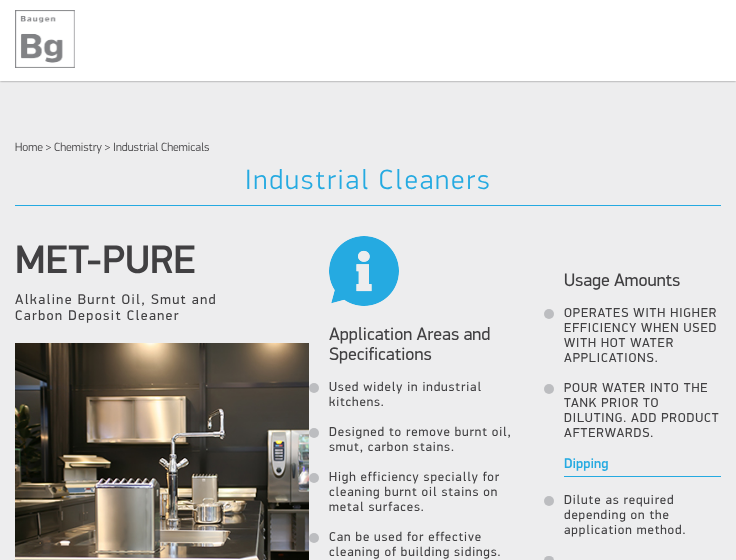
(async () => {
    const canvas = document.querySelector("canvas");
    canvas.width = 736;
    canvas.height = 560;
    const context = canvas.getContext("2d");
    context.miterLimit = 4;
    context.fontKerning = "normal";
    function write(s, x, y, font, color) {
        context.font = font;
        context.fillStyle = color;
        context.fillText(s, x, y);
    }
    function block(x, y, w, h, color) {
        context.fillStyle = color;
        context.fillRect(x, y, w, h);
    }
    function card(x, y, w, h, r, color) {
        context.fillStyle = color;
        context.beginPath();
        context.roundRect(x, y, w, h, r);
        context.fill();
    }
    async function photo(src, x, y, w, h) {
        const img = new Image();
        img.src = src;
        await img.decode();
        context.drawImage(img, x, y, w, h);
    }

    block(0, 0, 736, 560, "rgb(237, 237, 238)");
    context.fillStyle = "rgba(0, 0, 0, 0.5)";
    context.filter = "blur(1px)";
    context.beginPath();
    context.rect(0, 0, 736, 81);
    context.fill();
    context.filter = "none";
    block(0, 0, 736, 81, "rgb(255, 255, 255)");
    await photo("media/1.png", 15, 10, 60, 58);
    write("Home > Chemistry > Industrial Chemicals", 15, 151, "300 12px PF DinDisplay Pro", "rgb(65, 64, 66)");
    block(15, 205, 706, 1, "rgb(37, 170, 225)");
    context.letterSpacing = "2px";
    write("Industrial Cleaners", 245, 189, "300 28px PF DinDisplay Pro", "rgb(37, 170, 225)");
    context.letterSpacing = "0px";
    write("MET-PURE", 15, 273, "500 40px PF DinDisplay Pro", "rgb(65, 64, 66)");
    context.letterSpacing = "1.4px";
    write("Alkaline Burnt Oil, Smut and", 15, 304, "14px PFDinDisplayPro", "rgb(65, 64, 66)");
    write("Carbon Deposit Cleaner", 15, 320, "14px PFDinDisplayPro", "rgb(65, 64, 66)");
    await photo("media/2.png", 15, 343, 294, 217);
    await photo("media/3.png", 329, 236, 70, 70);
    context.letterSpacing = "0px";
    write("Application Areas and", 329, 340, "18px PFDinDisplayPro", "rgb(65, 64, 66)");
    write("Specifications", 329, 360, "18px PFDinDisplayPro", "rgb(65, 64, 66)");
    context.fillStyle = "rgb(188, 189, 192)";
    context.beginPath();
    context.arc(314, 388, 5, 0, Math.PI * 2);
    context.fill();
    context.letterSpacing = "0.9px";
    write("Used widely in industrial", 329, 391, "13px PFDinDisplayPro", "rgb(65, 64, 66)");
    write("kitchens.", 329, 406, "13px PFDinDisplayPro", "rgb(65, 64, 66)");
    context.fillStyle = "rgb(188, 189, 192)";
    context.beginPath();
    context.arc(314, 433, 5, 0, Math.PI * 2);
    context.fill();
    write("Designed to remove burnt oil,", 329, 436, "13px PFDinDisplayPro", "rgb(65, 64, 66)");
    write("smut, carbon stains.", 329, 451, "13px PFDinDisplayPro", "rgb(65, 64, 66)");
    context.fillStyle = "rgb(188, 189, 192)";
    context.beginPath();
    context.arc(314, 478, 5, 0, Math.PI * 2);
    context.fill();
    write("High efficiency specially for", 329, 481, "13px PFDinDisplayPro", "rgb(65, 64, 66)");
    write("cleaning burnt oil stains on", 329, 496, "13px PFDinDisplayPro", "rgb(65, 64, 66)");
    write("metal surfaces.", 329, 511, "13px PFDinDisplayPro", "rgb(65, 64, 66)");
    context.fillStyle = "rgb(188, 189, 192)";
    context.beginPath();
    context.arc(314, 538, 5, 0, Math.PI * 2);
    context.fill();
    write("Can be used for effective", 329, 541, "13px PFDinDisplayPro", "rgb(65, 64, 66)");
    write("cleaning of building sidings.", 329, 556, "13px PFDinDisplayPro", "rgb(65, 64, 66)");
    context.letterSpacing = "0px";
    write("Usage Amounts", 564, 286, "18px PFDinDisplayPro", "rgb(65, 64, 66)");
    context.fillStyle = "rgb(188, 189, 192)";
    context.beginPath();
    context.arc(549, 314, 5, 0, Math.PI * 2);
    context.fill();
    context.letterSpacing = "0.9px";
    write("OPERATES WITH HIGHER", 564, 317, "13px PFDinDisplayPro", "rgb(65, 64, 66)");
    write("EFFICIENCY WHEN USED", 564, 332, "13px PFDinDisplayPro", "rgb(65, 64, 66)");
    write("WITH HOT WATER", 564, 347, "13px PFDinDisplayPro", "rgb(65, 64, 66)");
    write("APPLICATIONS.", 564, 362, "13px PFDinDisplayPro", "rgb(65, 64, 66)");
    context.fillStyle = "rgb(188, 189, 192)";
    context.beginPath();
    context.arc(549, 389, 5, 0, Math.PI * 2);
    context.fill();
    write("POUR WATER INTO THE", 564, 392, "13px PFDinDisplayPro", "rgb(65, 64, 66)");
    write("TANK PRIOR TO", 564, 407, "13px PFDinDisplayPro", "rgb(65, 64, 66)");
    write("DILUTING. ADD PRODUCT", 564, 422, "13px PFDinDisplayPro", "rgb(65, 64, 66)");
    write("AFTERWARDS.", 564, 437, "13px PFDinDisplayPro", "rgb(65, 64, 66)");
    block(564, 476, 157, 1, "rgb(37, 170, 225)");
    context.letterSpacing = "0px";
    write("Dipping", 564, 468, "500 14px PF DinDisplay Pro", "rgb(37, 170, 225)");
    context.fillStyle = "rgb(188, 189, 192)";
    context.beginPath();
    context.arc(549, 501, 5, 0, Math.PI * 2);
    context.fill();
    context.letterSpacing = "0.9px";
    write("Dilute as required", 564, 504, "13px PFDinDisplayPro", "rgb(65, 64, 66)");
    write("depending on the", 564, 519, "13px PFDinDisplayPro", "rgb(65, 64, 66)");
    write("application method.", 564, 534, "13px PFDinDisplayPro", "rgb(65, 64, 66)");
    card(544, 556, 10, 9, 5, "rgb(188, 189, 192)");
})();
